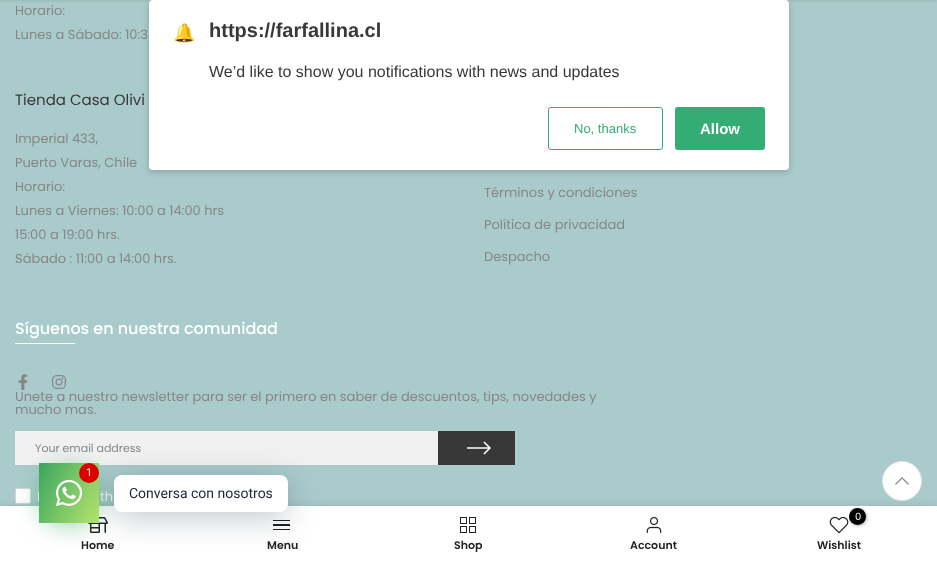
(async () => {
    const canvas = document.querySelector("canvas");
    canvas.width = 937;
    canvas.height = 561;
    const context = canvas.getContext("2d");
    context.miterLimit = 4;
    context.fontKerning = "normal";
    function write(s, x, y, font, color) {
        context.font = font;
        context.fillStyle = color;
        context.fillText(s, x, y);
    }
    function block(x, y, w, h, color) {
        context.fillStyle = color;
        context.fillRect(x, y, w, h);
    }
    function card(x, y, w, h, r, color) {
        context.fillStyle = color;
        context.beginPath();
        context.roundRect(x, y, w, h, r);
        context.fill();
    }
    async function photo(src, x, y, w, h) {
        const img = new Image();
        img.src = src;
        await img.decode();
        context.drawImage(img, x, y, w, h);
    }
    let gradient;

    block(0, 0, 937, 561, "rgb(170, 203, 203)");
    context.fillStyle = "rgba(0, 0, 0, 0.1)";
    context.filter = "blur(1.5px)";
    context.beginPath();
    context.rect(0, -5, 937, 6);
    context.fill();
    context.filter = "none";
    write("Horario:", 15, 15, "13px Poppins", "rgb(134, 134, 134)");
    write("Lunes a Sábado: 10:3", 15, 39, "13px Poppins", "rgb(134, 134, 134)");
    write("Tienda Casa Olivi", 15, 105, "15px Poppins", "rgb(56, 56, 56)");
    write("Imperial 433,", 15, 143, "13px Poppins", "rgb(134, 134, 134)");
    write("Puerto Varas, Chile", 15, 167, "13px Poppins", "rgb(134, 134, 134)");
    write("Horario:", 15, 191, "13px Poppins", "rgb(134, 134, 134)");
    write("Lunes a Viernes: 10:00 a 14:00 hrs", 15, 215, "13px Poppins", "rgb(134, 134, 134)");
    write("15:00 a 19:00 hrs.", 15, 239, "13px Poppins", "rgb(134, 134, 134)");
    write("Sábado : 11:00 a 14:00 hrs.", 15, 263, "13px Poppins", "rgb(134, 134, 134)");
    write("Términos y condiciones", 484, 197, "13px Poppins", "rgb(134, 134, 134)");
    write("Política de privacidad", 484, 229, "13px Poppins", "rgb(134, 134, 134)");
    write("Despacho", 484, 261, "13px Poppins", "rgb(134, 134, 134)");
    write("Síguenos en nuestra comunidad", 15, 334, "500 16px Poppins", "rgb(255, 255, 255)");
    block(15, 343, 60, 1, "rgb(255, 255, 255)");
    await photo("media/1.png", 18, 374, 10, 16);
    await photo("media/2.png", 52, 375, 14, 14);
    write("Unete a nuestro newsletter para ser el primero en saber de descuentos, tips, novedades y", 15, 401, "13px Poppins", "rgb(134, 134, 134)");
    write("mucho mas.", 15, 414, "13px Poppins", "rgb(134, 134, 134)");
    block(15, 431, 423, 34, "rgb(241, 241, 241)");
    write("Your email address", 35, 452, "11px Poppins", "rgb(134, 134, 134)");
    block(438, 431, 77, 34, "rgb(56, 56, 56)");
    await photo("media/3.png", 467, 441, 24, 14);
    context.fillStyle = "rgb(255, 255, 255)";
    context.beginPath();
    context.roundRect(15.5, 488.5, 15, 15, 1.5);
    context.fill();
    context.strokeStyle = "rgb(212, 214, 216)";
    context.stroke();
    write("I", 37, 501, "13px Poppins", "rgb(255, 255, 255)");
    write("th", 100, 501, "13px Poppins", "rgb(255, 255, 255)");
    context.fillStyle = "rgba(0, 0, 0, 0.2)";
    context.filter = "blur(3px)";
    context.beginPath();
    context.roundRect(149, 2, 640, 170, 4);
    context.fill();
    context.filter = "none";
    card(149, 0, 640, 170, 4, "rgb(255, 255, 255)");
    write("🔔", 173, 39, "18px Noto Color Emoji", "rgb(251, 191, 36)");
    write("https://farfallina.cl", 209, 37, "bold 20px Liberation Sans", "rgb(56, 56, 56)");
    write("We’d like to show you notifications with news and updates", 209, 77, "16px Liberation Sans", "rgb(56, 56, 56)");
    context.beginPath();
    context.roundRect(548.5, 107.5, 114, 42, 2.5);
    context.strokeStyle = "rgb(51, 173, 115)";
    context.stroke();
    write("No, thanks", 574, 133, "13px Liberation Sans", "rgb(51, 173, 115)");
    card(675, 107, 90, 43, 3, "rgb(51, 173, 115)");
    write("Allow", 700, 134, "bold 15px Liberation Sans", "rgb(255, 255, 255)");
    context.fillStyle = "rgba(0, 0, 0, 0.12)";
    context.filter = "blur(4.5px)";
    context.beginPath();
    context.rect(0, 506, 937, 55);
    context.fill();
    context.filter = "none";
    block(0, 506, 937, 55, "rgb(255, 255, 255)");
    await photo("media/6.png", 88, 517, 20, 16);
    context.fillStyle = "rgba(58, 165, 96, 0.5)";
    context.filter = "blur(12px)";
    context.beginPath();
    context.roundRect(39, 467, 60, 60, 30);
    context.fill();
    context.filter = "none";
    gradient = context.createLinearGradient(33, 476, 105, 510);
    gradient.addColorStop(0, "rgb(58, 165, 96)");
    gradient.addColorStop(1, "rgb(183, 230, 108)");
    context.fillStyle = gradient;
    context.fillRect(39, 463, 60, 60);
    block(273, 520, 17, 1, "rgb(34, 34, 34)");
    block(273, 524, 17, 2, "rgb(34, 34, 34)");
    block(273, 529, 17, 1, "rgb(34, 34, 34)");
    context.fillStyle = "rgba(0, 18, 46, 0.24)";
    context.filter = "blur(16px)";
    context.beginPath();
    context.roundRect(114, 481, 174, 37, 8);
    context.fill();
    context.filter = "none";
    await photo("media/4.png", 56, 479, 27, 27);
    context.fillStyle = "rgb(221, 0, 0)";
    context.beginPath();
    context.arc(89, 473, 10, 0, Math.PI * 2);
    context.fill();
    write("1", 86, 476, "11px Roboto", "rgb(255, 255, 255)");
    card(114, 475, 174, 37, 8, "rgb(255, 255, 255)");
    write("Conversa con nosotros", 129, 498, "14px Roboto", "rgb(30, 36, 51)");
    context.fillStyle = "rgb(255, 255, 255)";
    context.beginPath();
    context.arc(902, 481, 19.5, 0, Math.PI * 2);
    context.fill();
    context.strokeStyle = "rgb(230, 230, 230)";
    context.stroke();
    await photo("media/5.png", 895, 477, 14, 8);
    write("Home", 81, 549, "600 11px Poppins", "rgb(34, 34, 34)");
    write("Menu", 267, 549, "600 11px Poppins", "rgb(34, 34, 34)");
    await photo("media/7.png", 460, 517, 16, 16);
    write("Shop", 454, 549, "600 11px Poppins", "rgb(34, 34, 34)");
    await photo("media/8.png", 646, 516, 16, 18);
    write("Account", 630, 549, "600 11px Poppins", "rgb(34, 34, 34)");
    await photo("media/9.png", 829, 516, 20, 18);
    context.fillStyle = "rgba(0, 0, 0, 0.3)";
    context.filter = "blur(1.5px)";
    context.beginPath();
    context.roundRect(850, 509, 17, 17, 8.5);
    context.fill();
    context.filter = "none";
    context.fillStyle = "rgb(0, 0, 0)";
    context.beginPath();
    context.arc(857.5, 516.5, 8.5, 0, Math.PI * 2);
    context.fill();
    write("0", 855, 520, "10px Poppins", "rgb(255, 255, 255)");
    write("Wishlist", 817, 549, "600 11px Poppins", "rgb(34, 34, 34)");
})();
